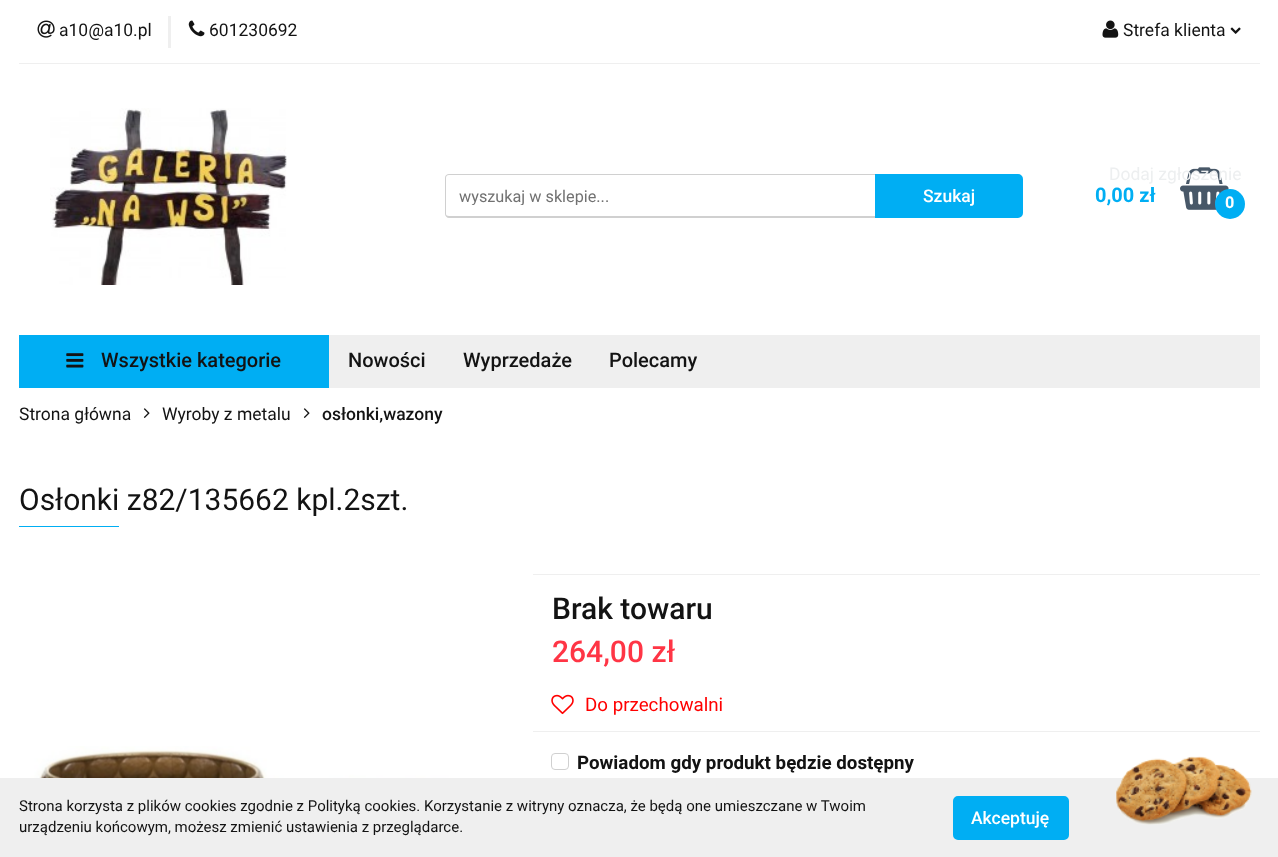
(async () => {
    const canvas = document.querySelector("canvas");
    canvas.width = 1278;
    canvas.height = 857;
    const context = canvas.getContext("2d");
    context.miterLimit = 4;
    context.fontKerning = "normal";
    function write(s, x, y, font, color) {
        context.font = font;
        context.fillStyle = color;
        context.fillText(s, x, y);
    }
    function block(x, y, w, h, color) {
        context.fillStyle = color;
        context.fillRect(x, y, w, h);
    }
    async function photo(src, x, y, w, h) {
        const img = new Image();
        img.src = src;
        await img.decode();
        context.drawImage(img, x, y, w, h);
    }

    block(0, 0, 1278, 857, "rgb(255, 255, 255)");
    block(19, 63, 1241, 1, "rgb(239, 239, 239)");
    await photo("media/1.png", 37, 20, 18, 18);
    write("a10@a10.pl", 59, 36, "17.5px Roboto", "rgb(19, 19, 19)");
    block(168, 16, 3, 32, "rgb(239, 239, 239)");
    await photo("media/2.png", 188, 20, 17, 17);
    write("601230692", 209, 36, "17.5px Roboto", "rgb(19, 19, 19)");
    await photo("media/3.png", 1102, 20, 17, 18);
    write("Strefa klienta", 1123, 36, "17.5px Roboto", "rgb(19, 19, 19)");
    await photo("media/4.png", 1230, 27, 11, 7);
    await photo("media/6.png", 1180, 167, 49, 43);
    write("Dodaj zgłoszenie", 1109, 180, "17.5px Roboto", "rgb(237, 239, 240)");
    await photo("media/5.png", 50, 108, 237, 177);
    context.fillStyle = "rgb(208, 208, 208)";
    context.beginPath();
    context.moveTo(449, 174);
    context.lineTo(875, 174);
    context.lineTo(875, 218);
    context.lineTo(449, 218);
    context.bezierCurveTo(447, 218, 445, 216, 445, 214);
    context.lineTo(445, 178);
    context.bezierCurveTo(445, 175, 447, 174, 449, 174);
    context.closePath();
    context.moveTo(449, 175);
    context.lineTo(875, 175);
    context.lineTo(875, 216);
    context.lineTo(449, 216);
    context.bezierCurveTo(447, 216, 446, 215, 446, 214);
    context.lineTo(446, 178);
    context.bezierCurveTo(446, 176, 447, 175, 449, 175);
    context.closePath();
    context.fill("evenodd");
    context.save();
    context.beginPath();
    context.rect(459, 186, 404, 19);
    context.clip();
    write("wyszukaj w sklepie...", 459, 202, "16.25px Roboto", "rgb(113, 113, 113)");
    context.restore();
    context.fillStyle = "rgb(0, 174, 243)";
    context.beginPath();
    context.roundRect(877, 176, 144, 40, [0, 3, 3, 0]);
    context.fill();
    context.strokeStyle = "rgb(0, 174, 243)";
    context.lineWidth = 4;
    context.stroke();
    write("Szukaj", 923, 202, "500 17.5px Roboto", "rgb(255, 255, 255)");
    write("0,00 zł", 1095, 202, "bold 20px Roboto", "rgb(0, 174, 243)");
    context.beginPath();
    context.arc(1230, 204, 15, 0, Math.PI * 2);
    context.fill();
    write("0", 1225, 208, "bold 16.25px Roboto", "rgb(255, 255, 255)");
    block(329, 335, 931, 53, "rgb(239, 239, 239)");
    block(19, 335, 310, 53, "rgb(0, 174, 243)");
    await photo("media/7.png", 66, 353, 18, 15);
    write("Wszystkie kategorie", 101, 367, "500 20px Roboto", "rgb(19, 19, 19)");
    write("Nowości", 348, 367, "500 20px Roboto", "rgb(19, 19, 19)");
    write("Wyprzedaże", 463, 367, "500 20px Roboto", "rgb(19, 19, 19)");
    write("Polecamy", 609, 367, "500 20px Roboto", "rgb(19, 19, 19)");
    write("Strona główna", 19, 420, "17.5px Roboto", "rgb(19, 19, 19)");
    await photo("media/8.png", 143, 408, 7, 10);
    write("Wyroby z metalu", 162, 420, "17.5px Roboto", "rgb(19, 19, 19)");
    await photo("media/8.png", 303, 408, 7, 10);
    write("osłonki,wazony", 322, 420, "500 17.5px Roboto", "rgb(19, 19, 19)");
    write("Osłonki z82/135662 kpl.2szt.", 19, 510, "30px Roboto", "rgb(19, 19, 19)");
    block(19, 526, 100, 1, "rgb(0, 174, 243)");
    await photo("media/9.png", 29, 746, 476, 32);
    block(533, 574, 727, 1, "rgb(239, 239, 239)");
    block(533, 731, 727, 1, "rgb(239, 239, 239)");
    write("Brak towaru", 552, 619, "500 30px Roboto", "rgb(19, 19, 19)");
    write("264,00 zł", 552, 662, "500 30px Roboto", "rgb(255, 53, 69)");
    await photo("media/10.png", 551, 694, 23, 21);
    write("Do przechowalni", 585, 711, "18.75px Roboto", "rgb(255, 0, 0)");
    context.beginPath();
    context.roundRect(551.5, 753.5, 17, 16, 3.5);
    context.strokeStyle = "rgb(208, 208, 208)";
    context.lineWidth = 1;
    context.stroke();
    write("Powiadom gdy produkt będzie dostępny", 577, 769, "bold 18.75px Roboto", "rgb(19, 19, 19)");
    block(0, 778, 1278, 79, "rgb(239, 239, 239)");
    write("Strona korzysta z plików cookies zgodnie z Polityką cookies. Korzystanie z witryny oznacza, że będą one umieszczane w Twoim", 19, 811, "15px Roboto", "rgb(19, 19, 19)");
    write("urządzeniu końcowym, możesz zmienić ustawienia z przeglądarce.", 19, 832, "15px Roboto", "rgb(19, 19, 19)");
    context.fillStyle = "rgb(0, 174, 243)";
    context.beginPath();
    context.roundRect(955, 798, 112, 40, 3);
    context.fill();
    context.strokeStyle = "rgb(0, 174, 243)";
    context.lineWidth = 4;
    context.stroke();
    write("Akceptuję", 971, 824, "500 17.5px Roboto", "rgb(255, 255, 255)");
    await photo("media/11.png", 1116, 756, 136, 69);
})();
